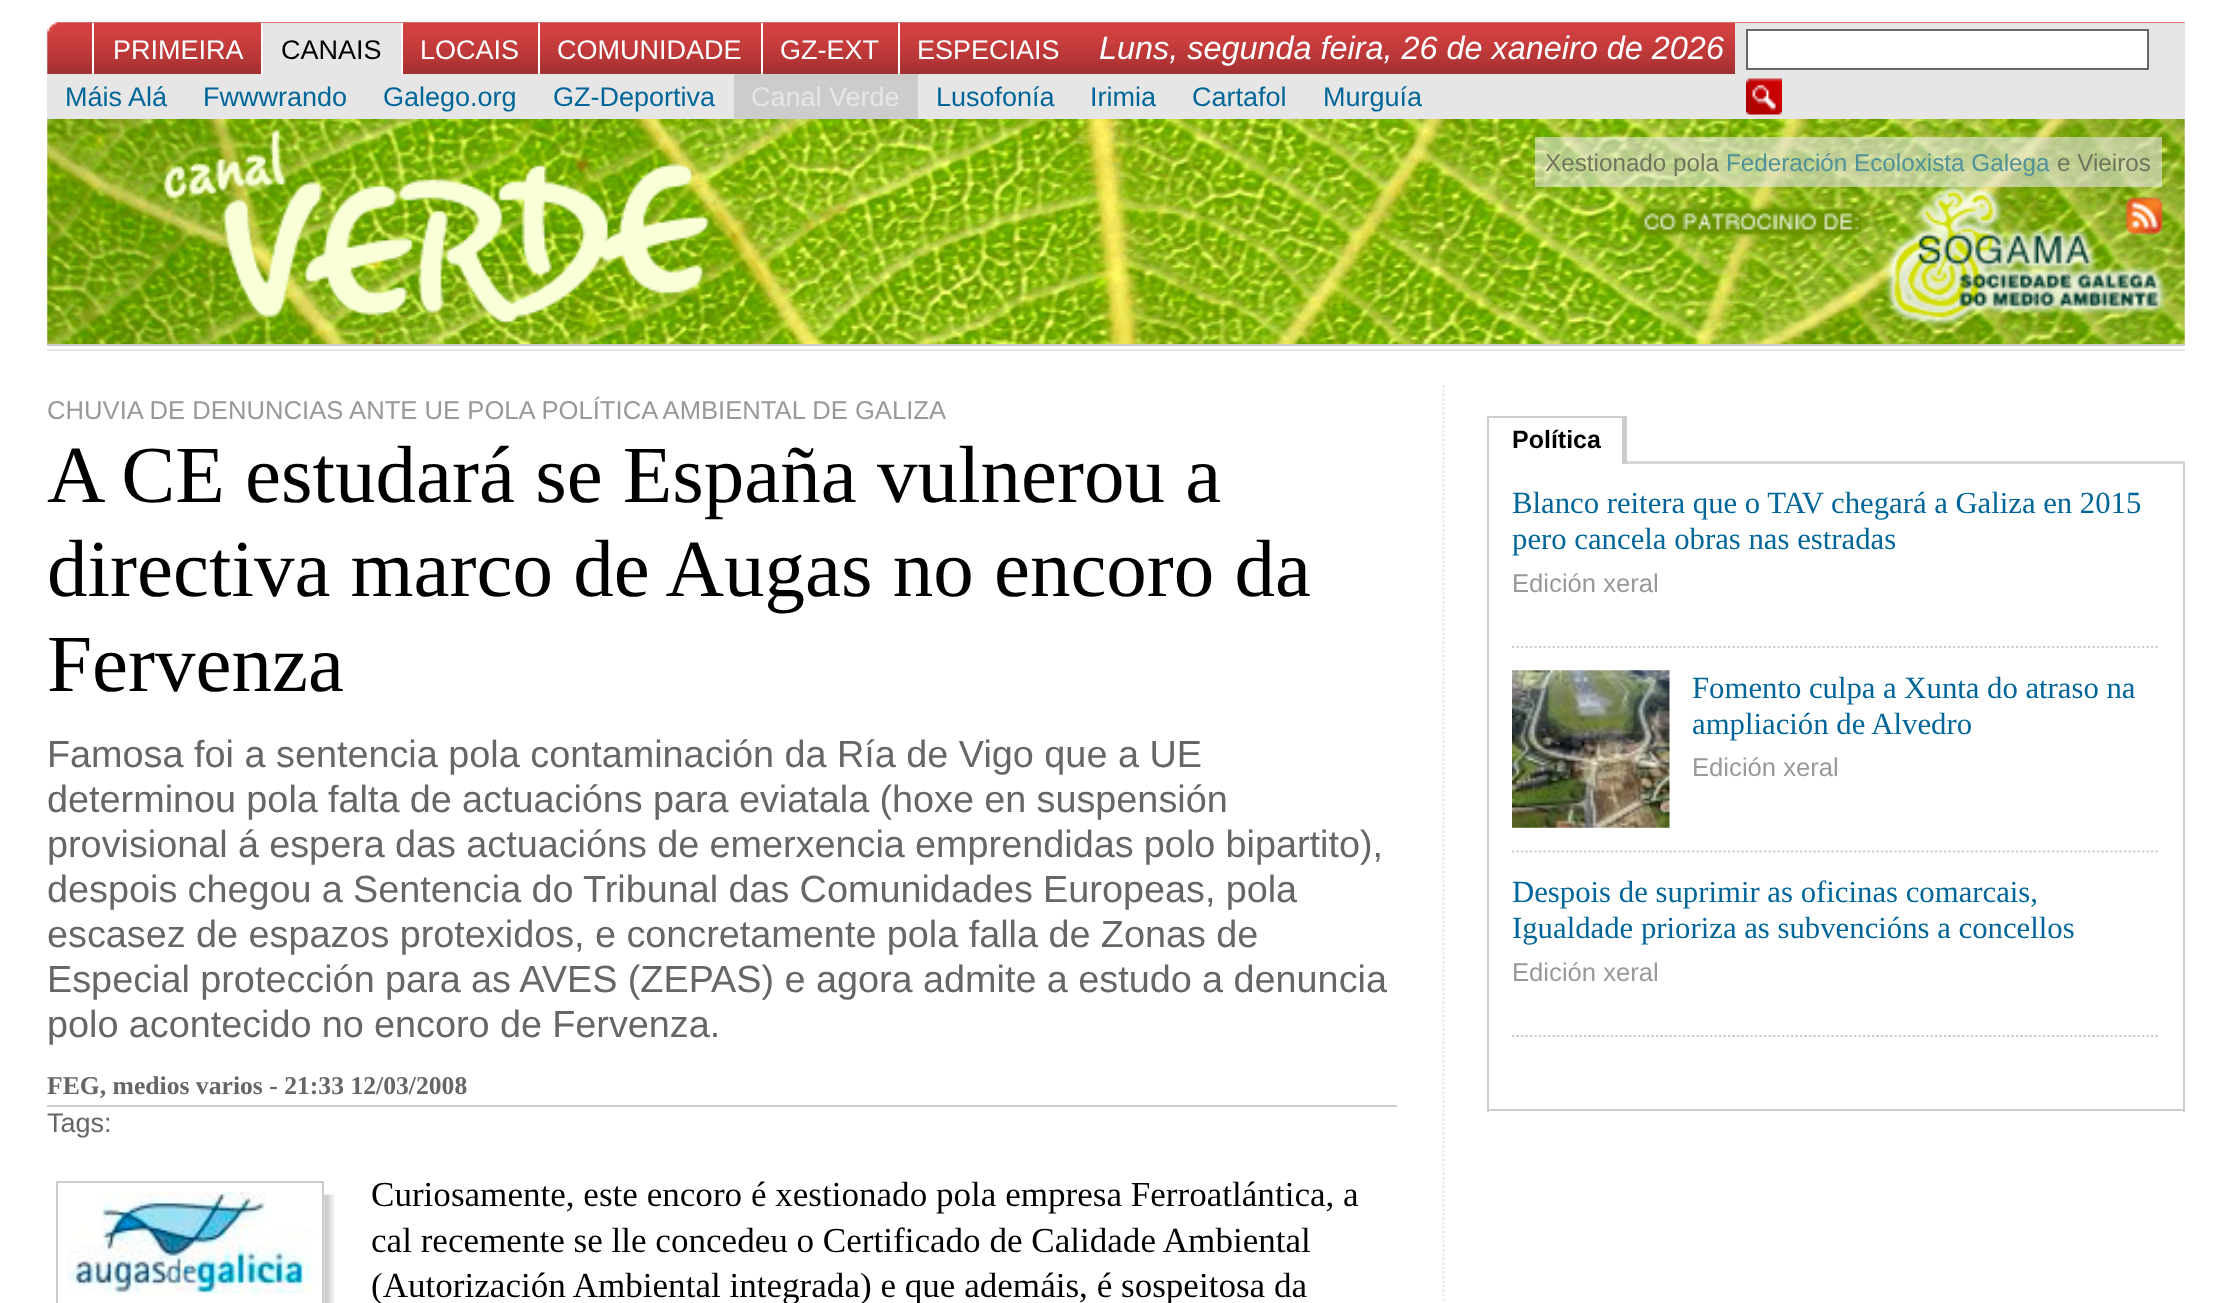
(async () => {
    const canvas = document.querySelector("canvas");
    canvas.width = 2232;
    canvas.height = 1303;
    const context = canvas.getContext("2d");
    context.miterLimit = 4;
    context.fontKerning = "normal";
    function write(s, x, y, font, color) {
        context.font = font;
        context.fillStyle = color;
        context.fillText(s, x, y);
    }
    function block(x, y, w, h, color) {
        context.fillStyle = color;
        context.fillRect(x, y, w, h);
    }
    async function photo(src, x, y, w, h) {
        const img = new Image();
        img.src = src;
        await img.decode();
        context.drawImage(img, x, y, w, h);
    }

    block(0, 0, 2232, 1303, "rgb(255, 255, 255)");
    await photo("media/1.png", 47, 22, 2138, 52);
    block(92, 23, 2, 51, "rgb(255, 255, 255)");
    write("PRIMEIRA", 113, 59, "27px Liberation Sans", "rgb(255, 255, 255)");
    block(261, 23, 2, 51, "rgb(255, 255, 255)");
    block(263, 23, 138, 51, "rgb(230, 230, 230)");
    write("CANAIS", 281, 59, "27px Liberation Sans", "rgb(0, 0, 0)");
    block(401, 23, 2, 51, "rgb(255, 255, 255)");
    write("LOCAIS", 420, 59, "27px Liberation Sans", "rgb(255, 255, 255)");
    block(538, 23, 2, 51, "rgb(255, 255, 255)");
    write("COMUNIDADE", 557, 59, "27px Liberation Sans", "rgb(255, 255, 255)");
    block(761, 23, 2, 51, "rgb(255, 255, 255)");
    write("GZ-EXT", 780, 59, "27px Liberation Sans", "rgb(255, 255, 255)");
    block(898, 23, 2, 51, "rgb(255, 255, 255)");
    write("ESPECIAIS", 917, 59, "27px Liberation Sans", "rgb(255, 255, 255)");
    write("Luns, segunda feira, 26 de xaneiro de 2026", 1099, 59, "italic 32.4px Liberation Sans", "rgb(255, 255, 255)");
    block(1735, 23, 450, 51, "rgb(230, 230, 230)");
    context.fillStyle = "rgb(255, 255, 255)";
    context.beginPath();
    context.rect(1747, 30, 401, 39);
    context.fill();
    context.strokeStyle = "rgb(102, 102, 102)";
    context.lineWidth = 2;
    context.stroke();
    block(47, 74, 2138, 45, "rgb(230, 230, 230)");
    await photo("media/2.png", 1746, 78, 36, 37);
    write("Máis Alá", 65, 106, "27px Liberation Sans", "rgb(0, 102, 153)");
    write("Fwwwrando", 203, 106, "27px Liberation Sans", "rgb(0, 102, 153)");
    write("Galego.org", 383, 106, "27px Liberation Sans", "rgb(0, 102, 153)");
    write("GZ-Deportiva", 553, 106, "27px Liberation Sans", "rgb(0, 102, 153)");
    block(734, 74, 184, 45, "rgb(204, 204, 204)");
    write("Canal Verde", 751, 106, "27px Liberation Sans", "rgb(230, 230, 230)");
    write("Lusofonía", 936, 106, "27px Liberation Sans", "rgb(0, 102, 153)");
    write("Irimia", 1090, 106, "27px Liberation Sans", "rgb(0, 102, 153)");
    write("Cartafol", 1192, 106, "27px Liberation Sans", "rgb(0, 102, 153)");
    write("Murguía", 1323, 106, "27px Liberation Sans", "rgb(0, 102, 153)");
    await photo("media/3.png", 47, 119, 2138, 225);
    block(47, 349, 2138, 2, "rgb(230, 230, 230)");
    block(47, 344, 2138, 2, "rgb(204, 204, 204)");
    block(1535, 137, 627, 50, "rgba(230, 230, 230, 0.6)");
    write("Xestionado pola", 1545, 171, "24.25px Liberation Sans", "rgb(111, 117, 92)");
    write("Federación Ecoloxista Galega", 1726, 171, "24.25px Liberation Sans", "rgb(79, 146, 153)");
    write("e Vieiros", 2057, 171, "24.25px Liberation Sans", "rgb(111, 117, 92)");
    await photo("media/4.png", 2126, 197, 37, 37);
    context.beginPath();
    context.moveTo(1443.5, 385);
    context.lineTo(1443.5, 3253.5);
    context.strokeStyle = "rgb(230, 230, 230)";
    context.lineWidth = 2.2;
    context.setLineDash([2.25, 2.25]);
    context.stroke();
    write("CHUVIA DE DENUNCIAS ANTE UE POLA POLÍTICA AMBIENTAL DE GALIZA", 47, 419, "25.65px Liberation Sans", "rgb(153, 153, 153)");
    write("A CE estudará se España vulnerou a", 47, 502, "81px Liberation Serif", "rgb(0, 0, 0)");
    write("directiva marco de Augas no encoro da", 47, 596, "81px Liberation Serif", "rgb(0, 0, 0)");
    write("Fervenza", 47, 691, "81px Liberation Serif", "rgb(0, 0, 0)");
    write("Famosa foi a sentencia pola contaminación da Ría de Vigo que a UE", 47, 767, "37.8px Liberation Sans", "rgb(102, 102, 102)");
    context.wordSpacing = "-0.25px";
    write("determinou pola falta de actuacións para eviatala (hoxe en suspensión", 47, 812, "37.8px Liberation Sans", "rgb(102, 102, 102)");
    write("provisional á espera das actuacións de emerxencia emprendidas polo bipartito),", 47, 857, "37.8px Liberation Sans", "rgb(102, 102, 102)");
    write("despois chegou a Sentencia do Tribunal das Comunidades Europeas, pola", 47, 902, "37.8px Liberation Sans", "rgb(102, 102, 102)");
    context.wordSpacing = "-0.1px";
    write("escasez de espazos protexidos, e concretamente pola falla de Zonas de", 47, 947, "37.8px Liberation Sans", "rgb(102, 102, 102)");
    write("Especial protección para as AVES (ZEPAS) e agora admite a estudo a denuncia", 47, 992, "37.8px Liberation Sans", "rgb(102, 102, 102)");
    context.wordSpacing = "-0.25px";
    write("polo acontecido no encoro de Fervenza.", 47, 1037, "37.8px Liberation Sans", "rgb(102, 102, 102)");
    block(47, 1105, 1350, 2, "rgb(204, 204, 204)");
    context.wordSpacing = "0px";
    write("FEG, medios varios - 21:33 12/03/2008", 47, 1094, "bold 25.65px Liberation Serif", "rgb(102, 102, 102)");
    write("Tags:", 47, 1132, "27px Liberation Sans", "rgb(102, 102, 102)");
    await photo("media/5.png", 324, 1194, 11, 109);
    context.strokeStyle = "rgb(204, 204, 204)";
    context.lineWidth = 2;
    context.setLineDash([]);
    context.strokeRect(57, 1182, 266, 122);
    await photo("media/6.png", 67, 1192, 246, 102);
    write("Curiosamente, este encoro é xestionado pola empresa Ferroatlántica, a", 371, 1206, "35.1px Liberation Serif", "rgb(0, 0, 0)");
    write("cal recemente se lle concedeu o Certificado de Calidade Ambiental", 371, 1252, "35.1px Liberation Serif", "rgb(0, 0, 0)");
    write("(Autorización Ambiental integrada) e que ademáis, é sospeitosa da", 371, 1297, "35.1px Liberation Serif", "rgb(0, 0, 0)");
    block(1627, 461, 558, 3, "rgb(213, 213, 213)");
    block(1487, 416, 140, 2, "rgb(204, 204, 204)");
    block(1622, 416, 5, 48, "rgb(204, 204, 204)");
    block(1487, 416, 2, 48, "rgb(204, 204, 204)");
    write("Política", 1512, 448, "bold 25px Liberation Sans", "rgb(0, 0, 0)");
    block(2183, 464, 2, 648, "rgb(204, 204, 204)");
    block(1487, 1109, 698, 2, "rgb(204, 204, 204)");
    block(1487, 464, 2, 648, "rgb(204, 204, 204)");
    context.beginPath();
    context.moveTo(1512, 647);
    context.lineTo(2160, 647);
    context.lineWidth = 2.2;
    context.setLineDash([2.25, 2.25]);
    context.stroke();
    context.wordSpacing = "-0.1px";
    write("Blanco reitera que o TAV chegará a Galiza en 2015", 1512, 513, "30.75px Liberation Serif", "rgb(0, 102, 153)");
    context.wordSpacing = "0px";
    write("pero cancela obras nas estradas", 1512, 549, "30.75px Liberation Serif", "rgb(0, 102, 153)");
    write("Edición xeral", 1512, 592, "25.65px Liberation Sans", "rgb(153, 153, 153)");
    context.beginPath();
    context.moveTo(1512, 851.5);
    context.lineTo(2160, 851.5);
    context.stroke();
    await photo("media/7.png", 1512, 670, 158, 158);
    context.wordSpacing = "-0.1px";
    write("Fomento culpa a Xunta do atraso na", 1692, 698, "30.75px Liberation Serif", "rgb(0, 102, 153)");
    context.wordSpacing = "0px";
    write("ampliación de Alvedro", 1692, 734, "30.75px Liberation Serif", "rgb(0, 102, 153)");
    write("Edición xeral", 1692, 776, "25.65px Liberation Sans", "rgb(153, 153, 153)");
    context.beginPath();
    context.moveTo(1512, 1036);
    context.lineTo(2160, 1036);
    context.stroke();
    write("Despois de suprimir as oficinas comarcais,", 1512, 902, "30.75px Liberation Serif", "rgb(0, 102, 153)");
    write("Igualdade prioriza as subvencións a concellos", 1512, 938, "30.75px Liberation Serif", "rgb(0, 102, 153)");
    write("Edición xeral", 1512, 981, "25.65px Liberation Sans", "rgb(153, 153, 153)");
})();
